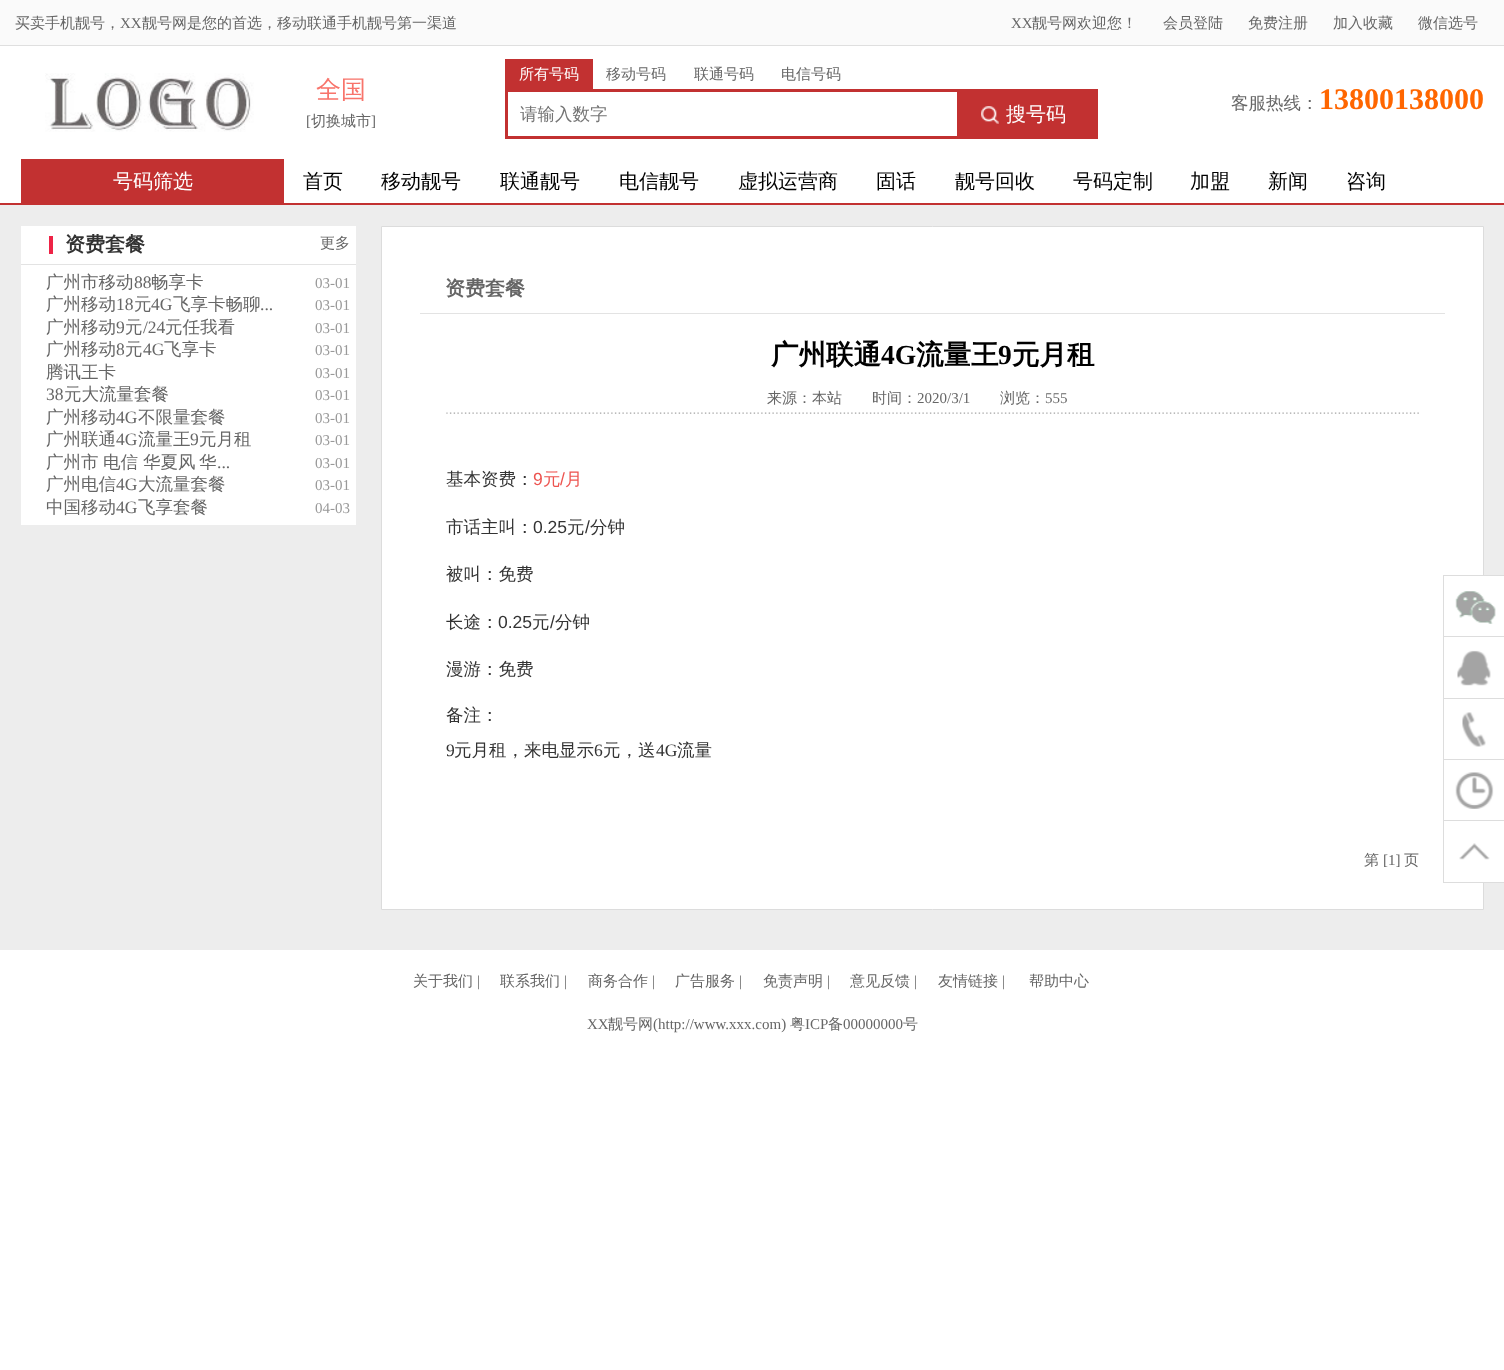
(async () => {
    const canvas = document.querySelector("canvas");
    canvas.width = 1504;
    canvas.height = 1370;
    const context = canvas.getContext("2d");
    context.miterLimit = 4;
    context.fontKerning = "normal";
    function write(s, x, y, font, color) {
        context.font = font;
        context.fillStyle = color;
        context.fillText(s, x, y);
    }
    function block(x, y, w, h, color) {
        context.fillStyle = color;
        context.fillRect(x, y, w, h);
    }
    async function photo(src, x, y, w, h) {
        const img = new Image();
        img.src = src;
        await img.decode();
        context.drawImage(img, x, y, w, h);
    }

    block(0, 0, 1504, 1370, "rgb(255, 255, 255)");
    block(0, 0, 1504, 45, "rgb(250, 250, 250)");
    block(0, 45, 1504, 1, "rgb(223, 223, 223)");
    write("买卖手机靓号，", 15, 28, "500 15px WenQuanYi Zen Hei", "rgb(102, 102, 102)");
    write("XX", 120, 28, "15px Liberation Serif", "rgb(102, 102, 102)");
    write("靓号网是您的首选，移动联通手机靓号第一渠道", 142, 28, "500 15px WenQuanYi Zen Hei", "rgb(102, 102, 102)");
    write("XX", 1011, 28, "15px Liberation Serif", "rgb(102, 102, 102)");
    write("靓号网欢迎您！", 1032, 28, "500 15px WenQuanYi Zen Hei", "rgb(102, 102, 102)");
    write("会员登陆", 1163, 28, "500 15px WenQuanYi Zen Hei", "rgb(102, 102, 102)");
    write("免费注册", 1248, 28, "500 15px WenQuanYi Zen Hei", "rgb(102, 102, 102)");
    write("加入收藏", 1333, 28, "500 15px WenQuanYi Zen Hei", "rgb(102, 102, 102)");
    write("微信选号", 1418, 28, "500 15px WenQuanYi Zen Hei", "rgb(102, 102, 102)");
    await photo("media/1.png", 45, 73, 209, 59);
    write("全国", 316, 98, "500 25px WenQuanYi Zen Hei", "rgb(248, 116, 107)");
    write("[", 306, 126, "15px Liberation Serif", "rgb(102, 102, 102)");
    write("切换城市", 311, 126, "500 15px WenQuanYi Zen Hei", "rgb(102, 102, 102)");
    write("]", 371, 126, "15px Liberation Serif", "rgb(102, 102, 102)");
    block(505, 59, 88, 30, "rgb(194, 49, 49)");
    write("所有号码", 519, 79, "500 15px WenQuanYi Zen Hei", "rgb(255, 255, 255)");
    write("移动号码", 606, 79, "500 15px WenQuanYi Zen Hei", "rgb(102, 102, 102)");
    write("联通号码", 694, 79, "500 15px WenQuanYi Zen Hei", "rgb(102, 102, 102)");
    write("电信号码", 781, 79, "500 15px WenQuanYi Zen Hei", "rgb(102, 102, 102)");
    context.strokeStyle = "rgb(194, 49, 49)";
    context.lineWidth = 3;
    context.strokeRect(506.5, 90.5, 452, 47);
    write("请输入数字", 520, 120, "500 17.5px WenQuanYi Zen Hei", "rgb(117, 117, 117)");
    block(960, 89, 138, 50, "rgb(194, 49, 49)");
    await photo("media/2.png", 981, 106, 18, 18);
    write("搜号码", 1006, 121, "500 20px WenQuanYi Zen Hei", "rgb(255, 255, 255)");
    write("客服热线：", 1231, 109, "500 17.5px WenQuanYi Zen Hei", "rgb(102, 102, 102)");
    write("13800138000", 1319, 109, "bold 30px Liberation Serif", "rgb(255, 102, 0)");
    block(0, 203, 1504, 2, "rgb(194, 49, 49)");
    block(21, 159, 263, 44, "rgb(194, 49, 49)");
    write("号码筛选", 113, 188, "500 20px WenQuanYi Zen Hei", "rgb(255, 255, 255)");
    write("首页", 303, 188, "500 20px WenQuanYi Zen Hei", "rgb(0, 0, 0)");
    write("移动靓号", 381, 188, "500 20px WenQuanYi Zen Hei", "rgb(0, 0, 0)");
    write("联通靓号", 500, 188, "500 20px WenQuanYi Zen Hei", "rgb(0, 0, 0)");
    write("电信靓号", 619, 188, "500 20px WenQuanYi Zen Hei", "rgb(0, 0, 0)");
    write("虚拟运营商", 738, 188, "500 20px WenQuanYi Zen Hei", "rgb(0, 0, 0)");
    write("固话", 876, 188, "500 20px WenQuanYi Zen Hei", "rgb(0, 0, 0)");
    write("靓号回收", 955, 188, "500 20px WenQuanYi Zen Hei", "rgb(0, 0, 0)");
    write("号码定制", 1073, 188, "500 20px WenQuanYi Zen Hei", "rgb(0, 0, 0)");
    write("加盟", 1190, 188, "500 20px WenQuanYi Zen Hei", "rgb(0, 0, 0)");
    write("新闻", 1268, 188, "500 20px WenQuanYi Zen Hei", "rgb(0, 0, 0)");
    write("咨询", 1346, 188, "500 20px WenQuanYi Zen Hei", "rgb(0, 0, 0)");
    block(0, 205, 1504, 745, "rgb(237, 237, 237)");
    block(21, 226, 335, 299, "rgb(255, 255, 255)");
    block(21, 264, 335, 1, "rgb(227, 227, 227)");
    block(49, 236, 4, 18, "rgb(238, 35, 70)");
    write("资费套餐", 65, 251, "bold 20px WenQuanYi Zen Hei", "rgb(51, 51, 51)");
    write("更多", 320, 248, "500 15px WenQuanYi Zen Hei", "rgb(102, 102, 102)");
    write("广州市移动", 46, 288, "500 17.5px WenQuanYi Zen Hei", "rgb(102, 102, 102)");
    write("88", 134, 288, "17.5px Liberation Serif", "rgb(102, 102, 102)");
    write("畅享卡", 151, 288, "500 17.5px WenQuanYi Zen Hei", "rgb(102, 102, 102)");
    write("03-01", 315, 288, "15px Liberation Serif", "rgb(153, 153, 153)");
    write("广州移动", 46, 310, "500 17.5px WenQuanYi Zen Hei", "rgb(102, 102, 102)");
    write("18", 116, 310, "17.5px Liberation Serif", "rgb(102, 102, 102)");
    write("元", 134, 310, "500 17.5px WenQuanYi Zen Hei", "rgb(102, 102, 102)");
    write("4G", 151, 310, "17.5px Liberation Serif", "rgb(102, 102, 102)");
    write("飞享卡畅聊", 173, 310, "500 17.5px WenQuanYi Zen Hei", "rgb(102, 102, 102)");
    write("...", 260, 310, "17.5px Liberation Serif", "rgb(102, 102, 102)");
    write("03-01", 315, 310, "15px Liberation Serif", "rgb(153, 153, 153)");
    write("广州移动", 46, 333, "500 17.5px WenQuanYi Zen Hei", "rgb(102, 102, 102)");
    write("9", 116, 333, "17.5px Liberation Serif", "rgb(102, 102, 102)");
    write("元", 125, 333, "500 17.5px WenQuanYi Zen Hei", "rgb(102, 102, 102)");
    write("/24", 143, 333, "17.5px Liberation Serif", "rgb(102, 102, 102)");
    write("元任我看", 165, 333, "500 17.5px WenQuanYi Zen Hei", "rgb(102, 102, 102)");
    write("03-01", 315, 333, "15px Liberation Serif", "rgb(153, 153, 153)");
    write("广州移动", 46, 355, "500 17.5px WenQuanYi Zen Hei", "rgb(102, 102, 102)");
    write("8", 116, 355, "17.5px Liberation Serif", "rgb(102, 102, 102)");
    write("元", 125, 355, "500 17.5px WenQuanYi Zen Hei", "rgb(102, 102, 102)");
    write("4G", 143, 355, "17.5px Liberation Serif", "rgb(102, 102, 102)");
    write("飞享卡", 164, 355, "500 17.5px WenQuanYi Zen Hei", "rgb(102, 102, 102)");
    write("03-01", 315, 355, "15px Liberation Serif", "rgb(153, 153, 153)");
    write("腾讯王卡", 46, 378, "500 17.5px WenQuanYi Zen Hei", "rgb(102, 102, 102)");
    write("03-01", 315, 378, "15px Liberation Serif", "rgb(153, 153, 153)");
    write("38", 46, 400, "17.5px Liberation Serif", "rgb(102, 102, 102)");
    write("元大流量套餐", 64, 400, "500 17.5px WenQuanYi Zen Hei", "rgb(102, 102, 102)");
    write("03-01", 315, 400, "15px Liberation Serif", "rgb(153, 153, 153)");
    write("广州移动", 46, 423, "500 17.5px WenQuanYi Zen Hei", "rgb(102, 102, 102)");
    write("4G", 116, 423, "17.5px Liberation Serif", "rgb(102, 102, 102)");
    write("不限量套餐", 138, 423, "500 17.5px WenQuanYi Zen Hei", "rgb(102, 102, 102)");
    write("03-01", 315, 423, "15px Liberation Serif", "rgb(153, 153, 153)");
    write("广州联通", 46, 445, "500 17.5px WenQuanYi Zen Hei", "rgb(102, 102, 102)");
    write("4G", 116, 445, "17.5px Liberation Serif", "rgb(102, 102, 102)");
    write("流量王", 138, 445, "500 17.5px WenQuanYi Zen Hei", "rgb(102, 102, 102)");
    write("9", 190, 445, "17.5px Liberation Serif", "rgb(102, 102, 102)");
    write("元月租", 199, 445, "500 17.5px WenQuanYi Zen Hei", "rgb(102, 102, 102)");
    write("03-01", 315, 445, "15px Liberation Serif", "rgb(153, 153, 153)");
    write("广州市", 46, 468, "500 17.5px WenQuanYi Zen Hei", "rgb(102, 102, 102)");
    write("电信", 103, 468, "500 17.5px WenQuanYi Zen Hei", "rgb(102, 102, 102)");
    write("华夏风", 143, 468, "500 17.5px WenQuanYi Zen Hei", "rgb(102, 102, 102)");
    write("华", 199, 468, "500 17.5px WenQuanYi Zen Hei", "rgb(102, 102, 102)");
    write("...", 217, 468, "17.5px Liberation Serif", "rgb(102, 102, 102)");
    write("03-01", 315, 468, "15px Liberation Serif", "rgb(153, 153, 153)");
    write("广州电信", 46, 490, "500 17.5px WenQuanYi Zen Hei", "rgb(102, 102, 102)");
    write("4G", 116, 490, "17.5px Liberation Serif", "rgb(102, 102, 102)");
    write("大流量套餐", 138, 490, "500 17.5px WenQuanYi Zen Hei", "rgb(102, 102, 102)");
    write("03-01", 315, 490, "15px Liberation Serif", "rgb(153, 153, 153)");
    write("中国移动", 46, 513, "500 17.5px WenQuanYi Zen Hei", "rgb(102, 102, 102)");
    write("4G", 116, 513, "17.5px Liberation Serif", "rgb(102, 102, 102)");
    write("飞享套餐", 138, 513, "500 17.5px WenQuanYi Zen Hei", "rgb(102, 102, 102)");
    write("04-03", 315, 513, "15px Liberation Serif", "rgb(153, 153, 153)");
    context.fillStyle = "rgb(255, 255, 255)";
    context.beginPath();
    context.rect(381.5, 226.5, 1102, 683);
    context.fill();
    context.strokeStyle = "rgb(220, 220, 220)";
    context.lineWidth = 1;
    context.stroke();
    block(420, 313, 1025, 1, "rgb(227, 227, 227)");
    write("资费套餐", 445, 295, "bold 20px WenQuanYi Zen Hei", "rgb(102, 102, 102)");
    write("广州联通", 771, 364, "bold 27.5px WenQuanYi Zen Hei", "rgb(0, 0, 0)");
    write("4G", 881, 364, "bold 27.5px Liberation Serif", "rgb(0, 0, 0)");
    write("流量王", 916, 364, "bold 27.5px WenQuanYi Zen Hei", "rgb(0, 0, 0)");
    write("9", 998, 364, "bold 27.5px Liberation Serif", "rgb(0, 0, 0)");
    write("元月租", 1012, 364, "bold 27.5px WenQuanYi Zen Hei", "rgb(0, 0, 0)");
    await photo("media/3.png", 446, 412, 973, 2);
    write("来源：本站", 767, 403, "500 15px WenQuanYi Zen Hei", "rgb(102, 102, 102)");
    write("时间：", 872, 403, "500 15px WenQuanYi Zen Hei", "rgb(102, 102, 102)");
    write("2020/3/1", 917, 403, "15px Liberation Serif", "rgb(102, 102, 102)");
    write("浏览：", 1000, 403, "500 15px WenQuanYi Zen Hei", "rgb(102, 102, 102)");
    write("555", 1045, 403, "15px Liberation Serif", "rgb(102, 102, 102)");
    write("基本资费：", 446, 485, "500 17.5px WenQuanYi Zen Hei", "rgb(51, 51, 51)");
    write("9", 533, 485, "17.5px Liberation Sans", "rgb(237, 84, 80)");
    write("元", 543, 485, "500 17.5px WenQuanYi Zen Hei", "rgb(237, 84, 80)");
    write("/", 560, 485, "17.5px Liberation Sans", "rgb(237, 84, 80)");
    write("月", 565, 485, "500 17.5px WenQuanYi Zen Hei", "rgb(237, 84, 80)");
    write("市话主叫：", 446, 533, "500 17.5px WenQuanYi Zen Hei", "rgb(51, 51, 51)");
    write("0.25", 533, 533, "17.5px Liberation Sans", "rgb(51, 51, 51)");
    write("元", 567, 533, "500 17.5px WenQuanYi Zen Hei", "rgb(51, 51, 51)");
    write("/", 585, 533, "17.5px Liberation Sans", "rgb(51, 51, 51)");
    write("分钟", 590, 533, "500 17.5px WenQuanYi Zen Hei", "rgb(51, 51, 51)");
    write("被叫：免费", 446, 580, "500 17.5px WenQuanYi Zen Hei", "rgb(51, 51, 51)");
    write("长途：", 446, 628, "500 17.5px WenQuanYi Zen Hei", "rgb(51, 51, 51)");
    write("0.25", 498, 628, "17.5px Liberation Sans", "rgb(51, 51, 51)");
    write("元", 532, 628, "500 17.5px WenQuanYi Zen Hei", "rgb(51, 51, 51)");
    write("/", 550, 628, "17.5px Liberation Sans", "rgb(51, 51, 51)");
    write("分钟", 555, 628, "500 17.5px WenQuanYi Zen Hei", "rgb(51, 51, 51)");
    write("漫游：免费", 446, 675, "500 17.5px WenQuanYi Zen Hei", "rgb(51, 51, 51)");
    write("备注：", 446, 721, "500 17.5px WenQuanYi Zen Hei", "rgb(51, 51, 51)");
    write("9", 446, 756, "17.5px Liberation Serif", "rgb(51, 51, 51)");
    write("元月租，来电显示", 454, 756, "500 17.5px WenQuanYi Zen Hei", "rgb(51, 51, 51)");
    write("6", 594, 756, "17.5px Liberation Serif", "rgb(51, 51, 51)");
    write("元，送", 603, 756, "500 17.5px WenQuanYi Zen Hei", "rgb(51, 51, 51)");
    write("4G", 656, 756, "17.5px Liberation Serif", "rgb(51, 51, 51)");
    write("流量", 677, 756, "500 17.5px WenQuanYi Zen Hei", "rgb(51, 51, 51)");
    write("第", 1364, 865, "500 15px WenQuanYi Zen Hei", "rgb(102, 102, 102)");
    write("[1]", 1383, 865, "15px Liberation Serif", "rgb(102, 102, 102)");
    write("页", 1404, 865, "500 15px WenQuanYi Zen Hei", "rgb(102, 102, 102)");
    block(1483, 576, 21, 60, "rgb(255, 255, 255)");
    await photo("media/4.png", 1455, 591, 41, 33);
    block(1443, 575, 61, 1, "rgb(221, 221, 221)");
    block(1443, 575, 1, 61, "rgb(221, 221, 221)");
    block(1483, 637, 21, 61, "rgb(255, 255, 255)");
    await photo("media/5.png", 1457, 650, 34, 36);
    block(1443, 636, 61, 1, "rgb(221, 221, 221)");
    block(1443, 636, 1, 62, "rgb(221, 221, 221)");
    block(1483, 699, 21, 60, "rgb(255, 255, 255)");
    await photo("media/6.png", 1462, 712, 24, 47);
    block(1443, 698, 61, 1, "rgb(221, 221, 221)");
    block(1443, 698, 1, 61, "rgb(221, 221, 221)");
    block(1483, 760, 21, 60, "rgb(255, 255, 255)");
    await photo("media/7.png", 1455, 772, 39, 37);
    block(1443, 759, 61, 1, "rgb(221, 221, 221)");
    block(1443, 759, 1, 61, "rgb(221, 221, 221)");
    block(1483, 821, 21, 61, "rgb(255, 255, 255)");
    await photo("media/8.png", 1459, 843, 31, 17);
    context.strokeStyle = "rgb(221, 221, 221)";
    context.strokeRect(1443.5, 820.5, 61, 62);
    write("关于我们", 413, 986, "500 15px WenQuanYi Zen Hei", "rgb(102, 102, 102)");
    write("|", 477, 986, "15px Liberation Serif", "rgb(102, 102, 102)");
    write("联系我们", 500, 986, "500 15px WenQuanYi Zen Hei", "rgb(102, 102, 102)");
    write("|", 564, 986, "15px Liberation Serif", "rgb(102, 102, 102)");
    write("商务合作", 588, 986, "500 15px WenQuanYi Zen Hei", "rgb(102, 102, 102)");
    write("|", 652, 986, "15px Liberation Serif", "rgb(102, 102, 102)");
    write("广告服务", 675, 986, "500 15px WenQuanYi Zen Hei", "rgb(102, 102, 102)");
    write("|", 739, 986, "15px Liberation Serif", "rgb(102, 102, 102)");
    write("免责声明", 763, 986, "500 15px WenQuanYi Zen Hei", "rgb(102, 102, 102)");
    write("|", 827, 986, "15px Liberation Serif", "rgb(102, 102, 102)");
    write("意见反馈", 850, 986, "500 15px WenQuanYi Zen Hei", "rgb(102, 102, 102)");
    write("|", 914, 986, "15px Liberation Serif", "rgb(102, 102, 102)");
    write("友情链接", 938, 986, "500 15px WenQuanYi Zen Hei", "rgb(102, 102, 102)");
    write("|", 1002, 986, "15px Liberation Serif", "rgb(102, 102, 102)");
    write("帮助中心", 1029, 986, "500 15px WenQuanYi Zen Hei", "rgb(102, 102, 102)");
    write("XX", 587, 1029, "15px Liberation Serif", "rgb(102, 102, 102)");
    write("靓号网", 608, 1029, "500 15px WenQuanYi Zen Hei", "rgb(102, 102, 102)");
    write("(http://www.xxx.com)", 653, 1029, "15px Liberation Serif", "rgb(102, 102, 102)");
    write("粤", 790, 1029, "500 15px WenQuanYi Zen Hei", "rgb(102, 102, 102)");
    write("ICP", 805, 1029, "15px Liberation Serif", "rgb(102, 102, 102)");
    write("备", 828, 1029, "500 15px WenQuanYi Zen Hei", "rgb(102, 102, 102)");
    write("00000000", 843, 1029, "15px Liberation Serif", "rgb(102, 102, 102)");
    write("号", 903, 1029, "500 15px WenQuanYi Zen Hei", "rgb(102, 102, 102)");
})();
